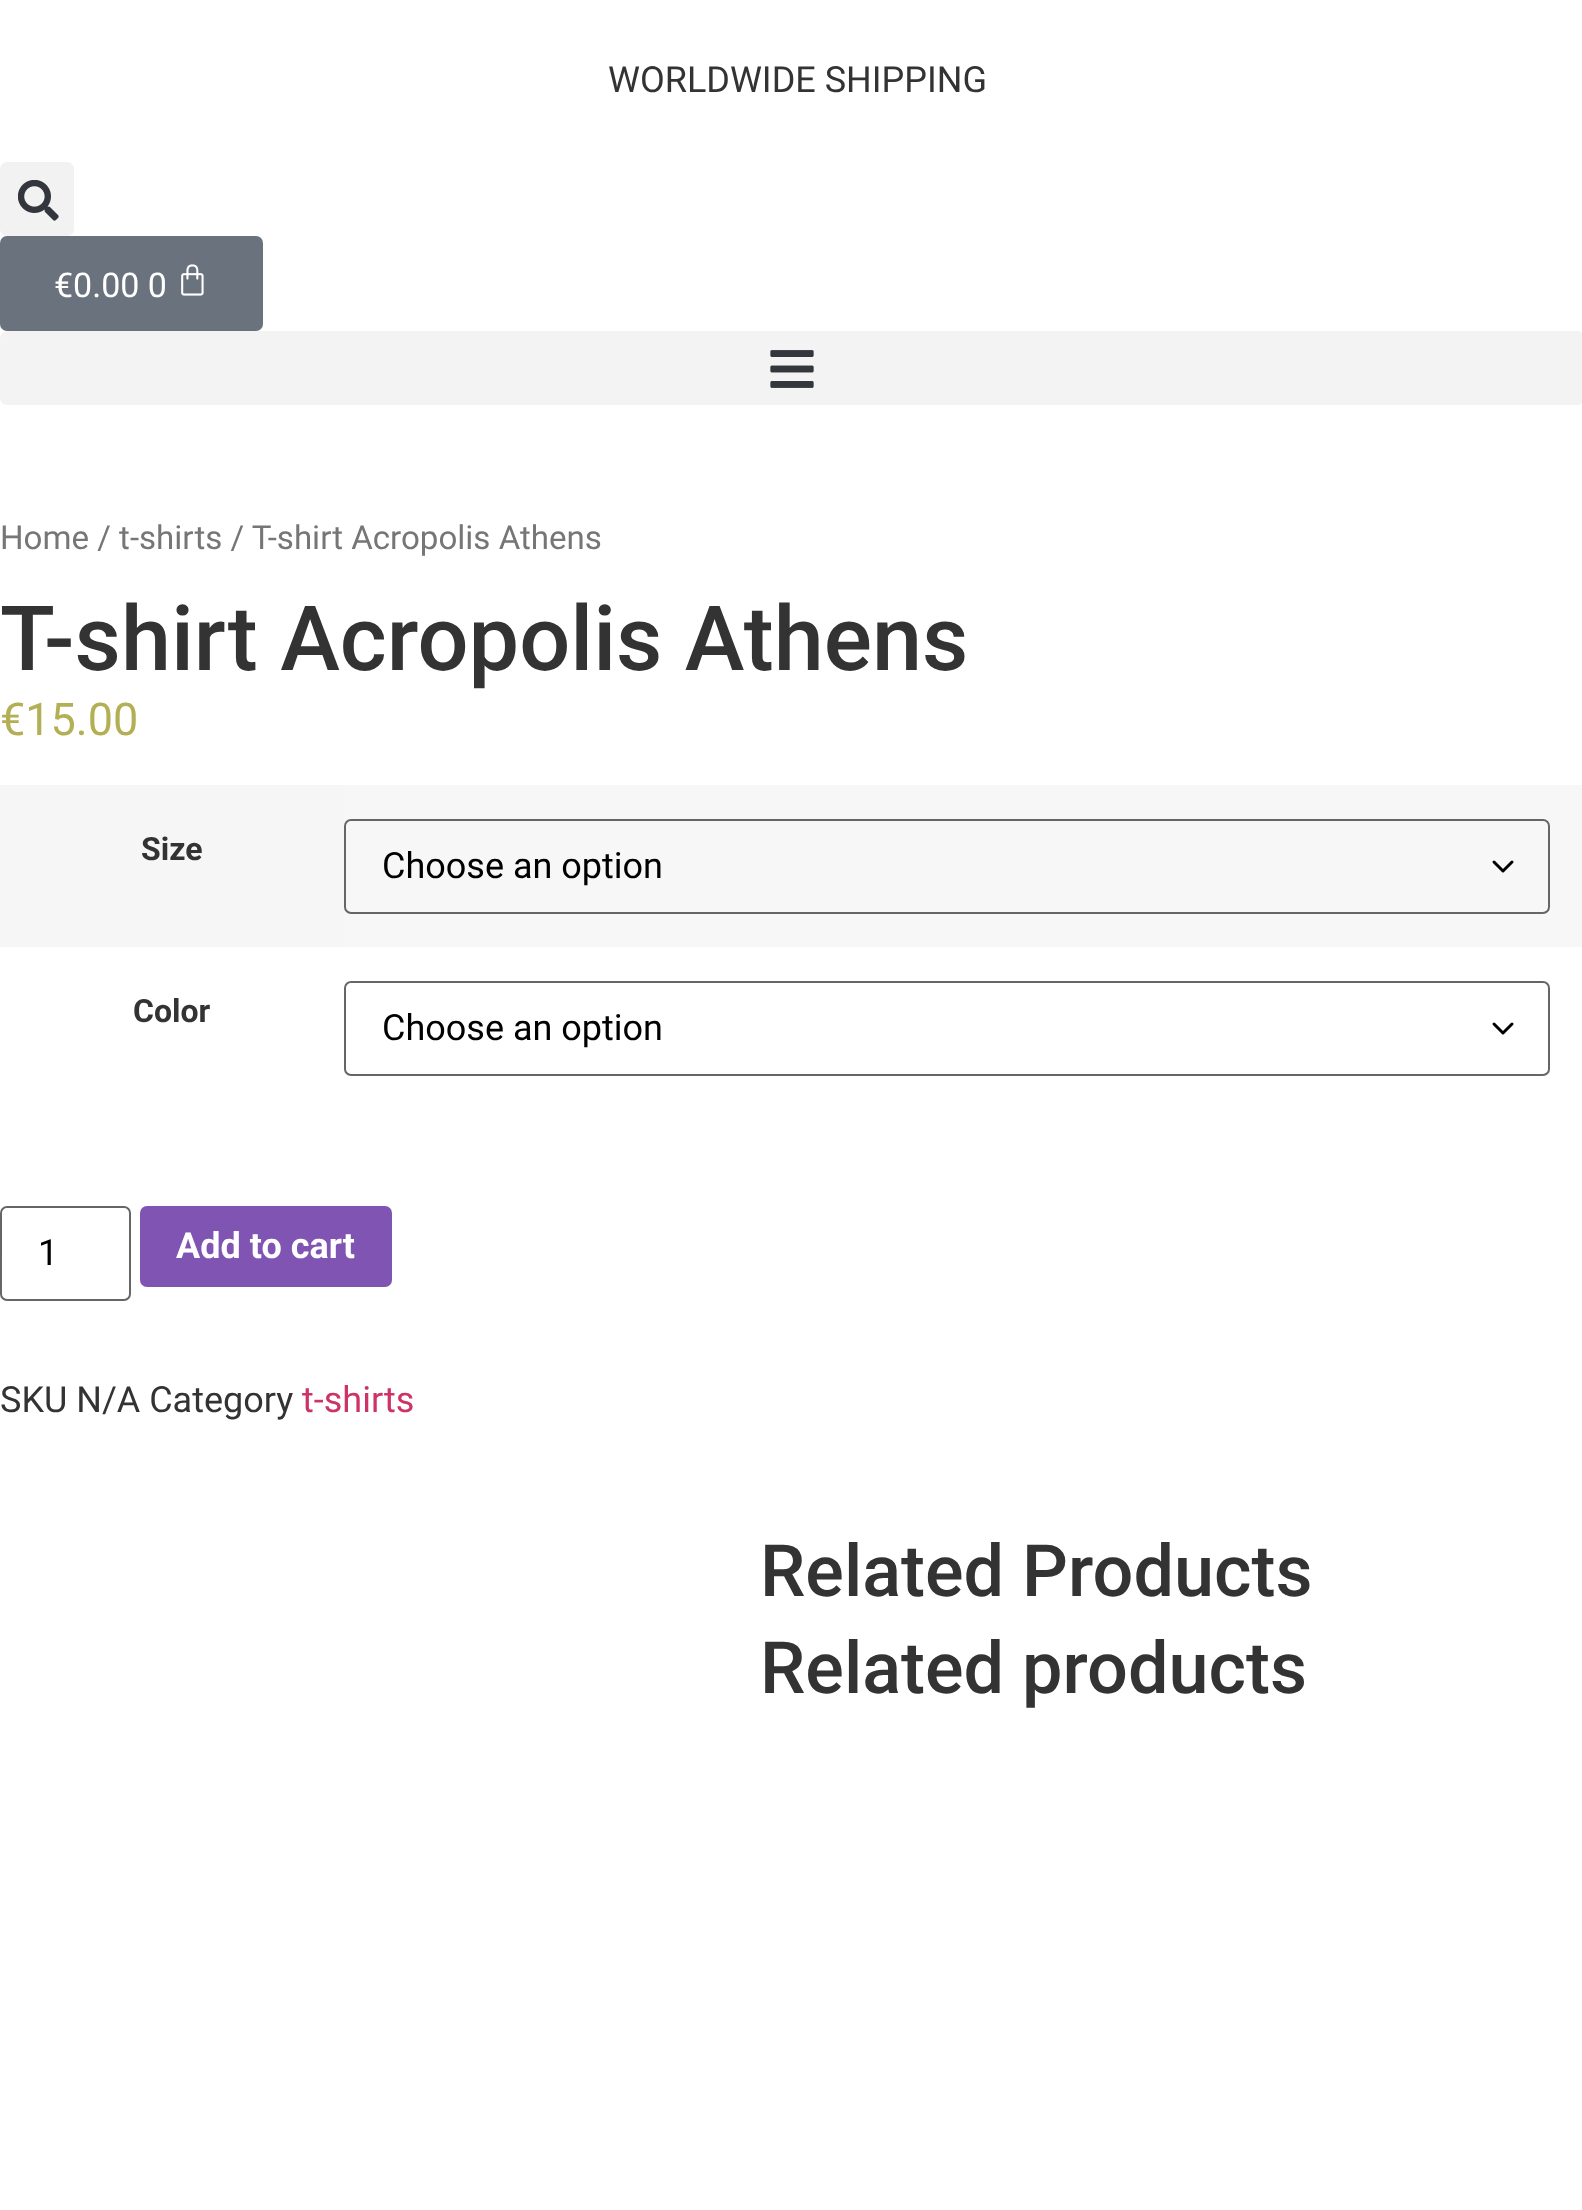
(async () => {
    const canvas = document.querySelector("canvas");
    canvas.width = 1582;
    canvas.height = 2210;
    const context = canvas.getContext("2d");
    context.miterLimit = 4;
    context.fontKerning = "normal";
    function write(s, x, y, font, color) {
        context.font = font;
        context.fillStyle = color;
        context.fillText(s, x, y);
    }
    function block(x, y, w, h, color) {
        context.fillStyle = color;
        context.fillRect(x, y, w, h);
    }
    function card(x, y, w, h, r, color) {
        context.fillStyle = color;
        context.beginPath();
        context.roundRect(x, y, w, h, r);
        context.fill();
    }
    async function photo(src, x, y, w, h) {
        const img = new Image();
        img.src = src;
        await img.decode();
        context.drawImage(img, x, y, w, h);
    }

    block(0, 0, 1582, 2210, "rgb(255, 255, 255)");
    write("WORLDWIDE SHIPPING", 608, 92, "36px Roboto", "rgb(51, 51, 51)");
    card(0, 162, 74, 74, 7, "rgb(242, 242, 242)");
    await photo("media/1.png", 18, 180, 41, 41);
    card(0, 236, 263, 95, 7, "rgb(105, 114, 125)");
    write("€0.00 0", 54, 297, "34px Roboto", "rgb(255, 255, 255)");
    await photo("media/2.png", 181, 264, 23, 32);
    card(0, 331, 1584, 74, 7, "rgb(243, 243, 243)");
    await photo("media/3.png", 770, 350, 44, 38);
    write("Home / t-shirts / T-shirt Acropolis Athens", 0, 549, "33.1px Roboto", "rgb(118, 118, 118)");
    write("T-shirt Acropolis Athens", 0, 670, "500 90px Roboto", "rgb(51, 51, 51)");
    write("€15.00", 0, 735, "45px Roboto", "rgb(179, 175, 84)");
    block(0, 785, 344, 162, "rgb(246, 246, 246)");
    write("Size", 141, 860, "bold 32px Roboto", "rgb(51, 51, 51)");
    block(344, 785, 1238, 162, "rgb(247, 247, 247)");
    context.beginPath();
    context.moveTo(1494, 862);
    context.lineTo(1503, 871);
    context.lineTo(1512, 862);
    context.strokeStyle = "rgb(0, 0, 0)";
    context.lineWidth = 3;
    context.lineCap = "round";
    context.lineJoin = "round";
    context.stroke();
    context.beginPath();
    context.roundRect(345, 820, 1204, 93, 6);
    context.strokeStyle = "rgb(102, 102, 102)";
    context.lineWidth = 2;
    context.lineJoin = "miter";
    context.stroke();
    write("Choose an option", 382, 878, "36px Roboto", "rgb(0, 0, 0)");
    write("Color", 133, 1022, "bold 32px Roboto", "rgb(51, 51, 51)");
    context.beginPath();
    context.moveTo(1494, 1024);
    context.lineTo(1503, 1033);
    context.lineTo(1512, 1024);
    context.strokeStyle = "rgb(0, 0, 0)";
    context.lineWidth = 3;
    context.lineJoin = "round";
    context.stroke();
    context.beginPath();
    context.roundRect(345, 982, 1204, 93, 6);
    context.strokeStyle = "rgb(102, 102, 102)";
    context.lineWidth = 2;
    context.lineJoin = "miter";
    context.stroke();
    write("Choose an option", 382, 1040, "36px Roboto", "rgb(0, 0, 0)");
    context.beginPath();
    context.roundRect(1, 1207, 129, 93, 6);
    context.stroke();
    write("1", 38, 1265, "36px Roboto", "rgb(0, 0, 0)");
    card(140, 1206, 252, 81, 7, "rgb(127, 84, 179)");
    write("Add to cart", 176, 1258, "bold 36px Roboto", "rgb(255, 255, 255)");
    write("SKU N/A Category", 0, 1412, "36px Roboto", "rgb(51, 51, 51)");
    write("t-shirts", 302, 1412, "36px Roboto", "rgb(204, 51, 102)");
    write("Related Products", 760, 1596, "500 72px Roboto", "rgb(51, 51, 51)");
    write("Related products", 760, 1693, "500 72px Roboto", "rgb(51, 51, 51)");
})();
